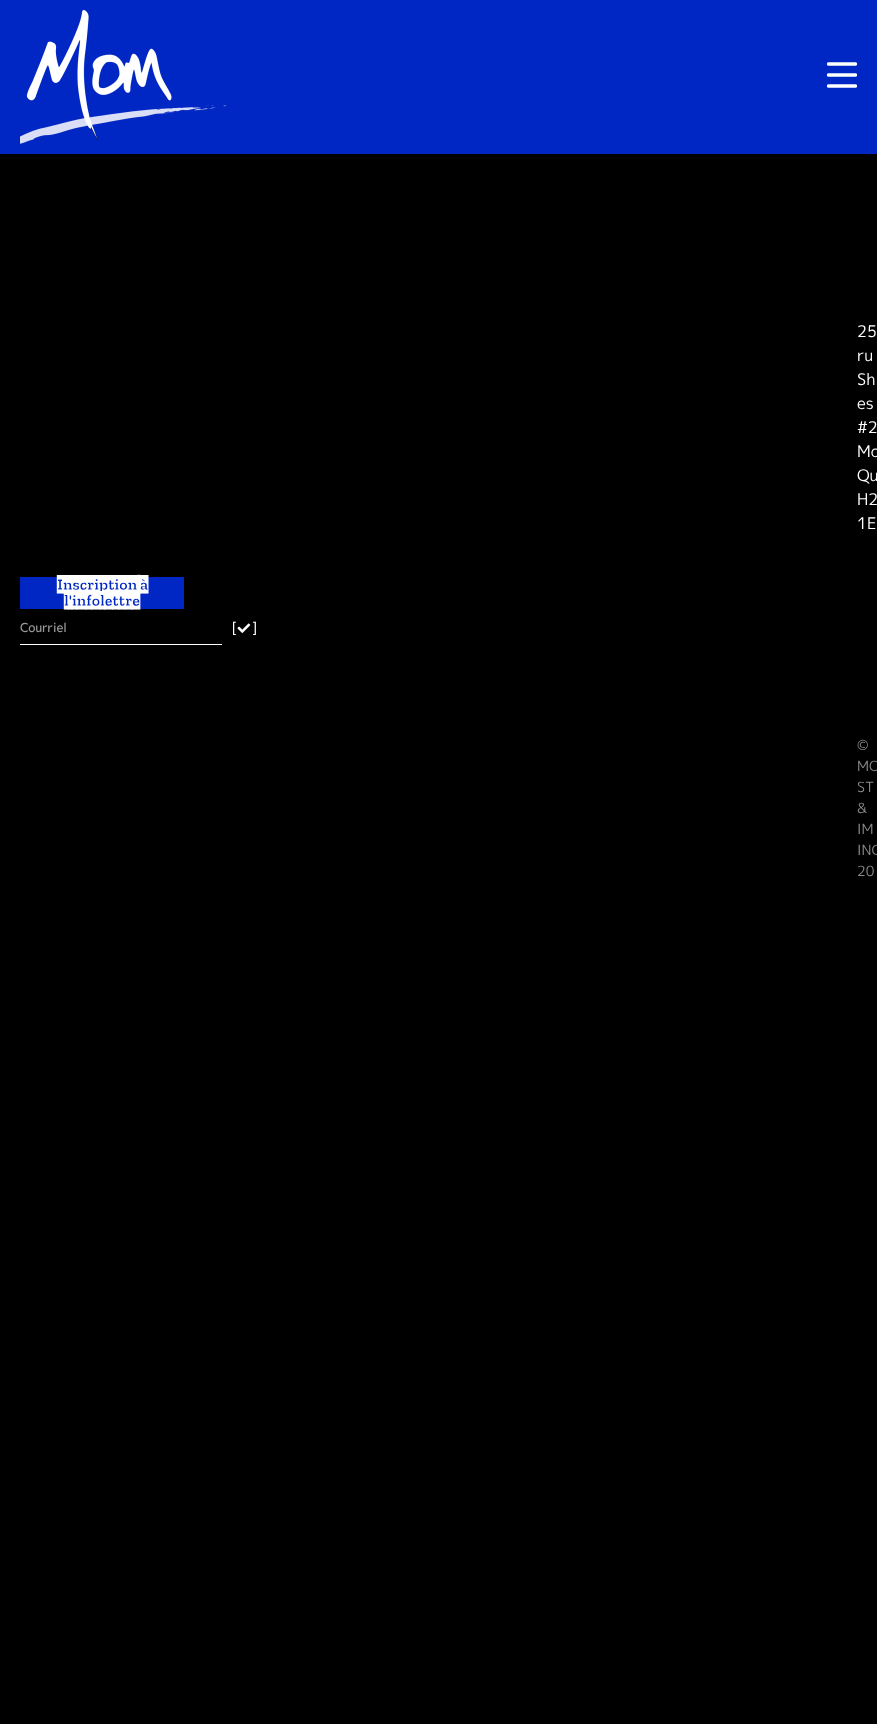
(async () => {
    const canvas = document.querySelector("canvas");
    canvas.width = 877;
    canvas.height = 1724;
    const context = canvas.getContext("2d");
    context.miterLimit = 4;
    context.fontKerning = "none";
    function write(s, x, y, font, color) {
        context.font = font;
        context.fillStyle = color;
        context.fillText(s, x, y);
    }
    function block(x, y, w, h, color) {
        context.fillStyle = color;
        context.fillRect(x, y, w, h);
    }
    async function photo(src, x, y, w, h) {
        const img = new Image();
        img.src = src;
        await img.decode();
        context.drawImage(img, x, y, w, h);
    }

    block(0, 0, 877, 1724, "rgb(0, 0, 0)");
    block(0, 0, 877, 154, "rgb(0, 39, 195)");
    await photo("media/1.png", 20, 10, 206, 134);
    context.save();
    context.beginPath();
    context.rect(827, 60, 30, 30);
    context.clip();
    context.beginPath();
    context.moveTo(828.5, 75);
    context.lineTo(855.5, 75);
    context.moveTo(828.5, 64);
    context.lineTo(855.5, 64);
    context.moveTo(828.5, 86);
    context.lineTo(855.5, 86);
    context.strokeStyle = "rgb(255, 255, 255)";
    context.lineWidth = 3.4;
    context.lineCap = "round";
    context.lineJoin = "round";
    context.stroke();
    context.restore();
    block(20, 577, 164, 32, "rgb(0, 39, 195)");
    write("Inscription à", 57, 590, "bold 16px Zilla Slab Highlight", "rgb(255, 255, 255)");
    write("l'infolettre", 64, 606, "bold 16px Zilla Slab Highlight", "rgb(255, 255, 255)");
    block(20, 644, 202, 1, "rgb(255, 255, 255)");
    write("Courriel", 20, 632, "bold 12px 'M PLUS 1p'", "rgb(153, 153, 153)");
    write("[", 232, 632, "14px Liberation Sans", "rgb(255, 255, 255)");
    await photo("media/2.png", 237, 623, 14, 10);
    write("]", 253, 632, "14px Liberation Sans", "rgb(255, 255, 255)");
    write("25", 857, 337, "16px 'M PLUS 1p'", "rgb(255, 255, 255)");
    write("ru", 857, 361, "16px 'M PLUS 1p'", "rgb(255, 255, 255)");
    write("Sh", 857, 385, "16px 'M PLUS 1p'", "rgb(255, 255, 255)");
    write("es", 857, 409, "16px 'M PLUS 1p'", "rgb(255, 255, 255)");
    write("#2", 857, 433, "16px 'M PLUS 1p'", "rgb(255, 255, 255)");
    write("Mo", 857, 457, "16px 'M PLUS 1p'", "rgb(255, 255, 255)");
    write("Qu", 857, 481, "16px 'M PLUS 1p'", "rgb(255, 255, 255)");
    write("H2", 857, 505, "16px 'M PLUS 1p'", "rgb(255, 255, 255)");
    write("1E", 857, 529, "16px 'M PLUS 1p'", "rgb(255, 255, 255)");
    write("©", 857, 750, "14px 'M PLUS 1p'", "rgb(136, 136, 136)");
    write("MO", 857, 771, "14px 'M PLUS 1p'", "rgb(136, 136, 136)");
    write("ST", 857, 792, "14px 'M PLUS 1p'", "rgb(136, 136, 136)");
    write("&", 857, 813, "14px 'M PLUS 1p'", "rgb(136, 136, 136)");
    write("IM", 857, 834, "14px 'M PLUS 1p'", "rgb(136, 136, 136)");
    write("INC", 857, 855, "14px 'M PLUS 1p'", "rgb(136, 136, 136)");
    write("20", 857, 876, "14px 'M PLUS 1p'", "rgb(136, 136, 136)");
})();
